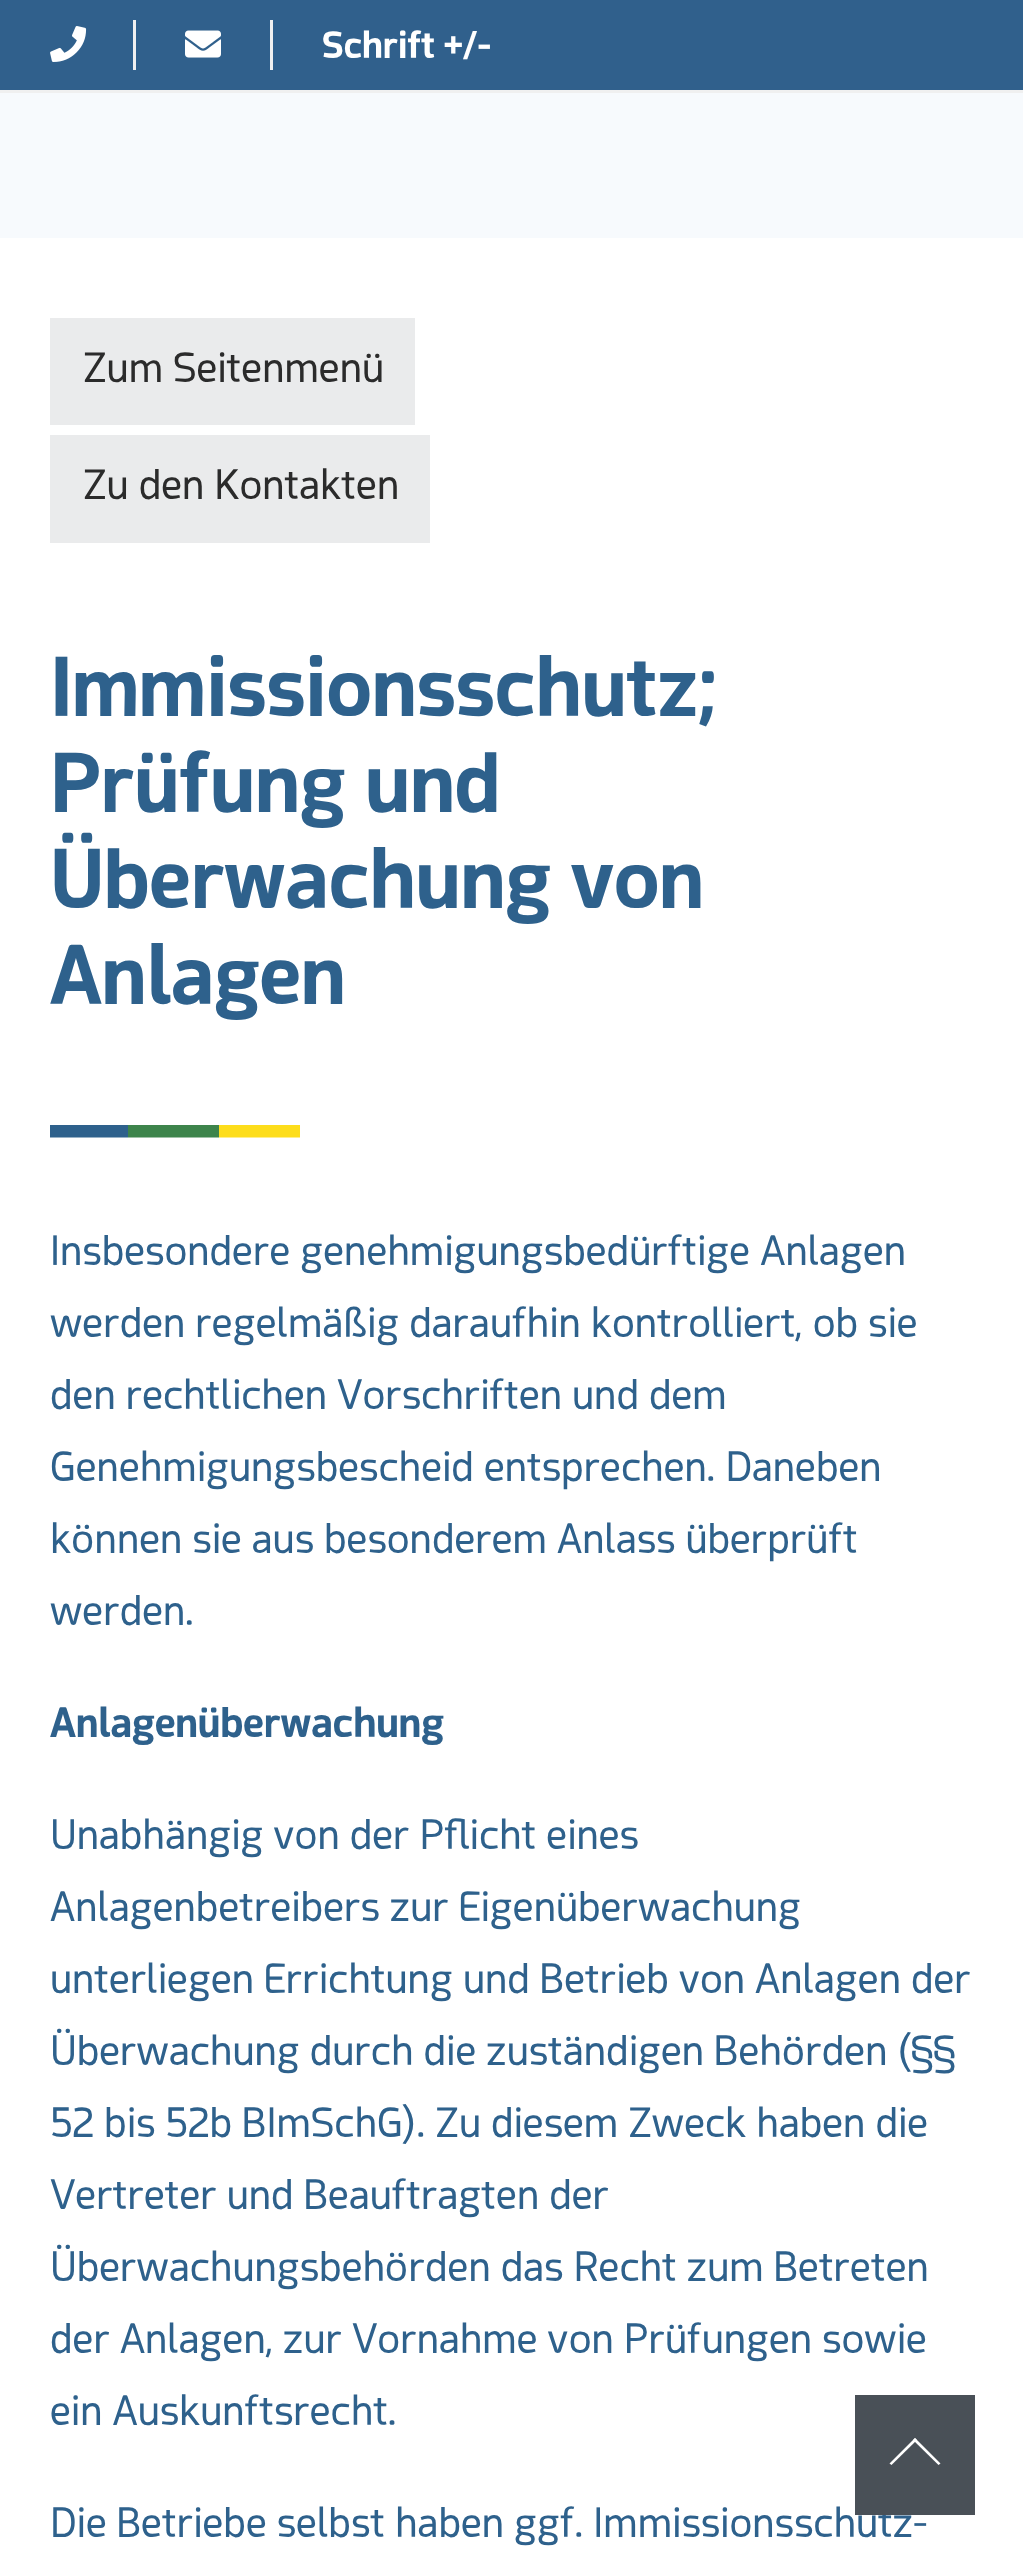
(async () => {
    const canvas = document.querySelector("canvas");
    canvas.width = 1023;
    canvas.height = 2565;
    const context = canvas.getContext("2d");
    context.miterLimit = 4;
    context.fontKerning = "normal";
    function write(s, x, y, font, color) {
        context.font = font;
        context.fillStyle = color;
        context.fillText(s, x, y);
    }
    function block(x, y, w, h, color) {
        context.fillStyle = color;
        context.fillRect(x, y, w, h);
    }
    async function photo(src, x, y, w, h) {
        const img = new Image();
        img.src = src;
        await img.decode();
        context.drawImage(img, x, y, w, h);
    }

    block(0, 0, 1023, 2565, "rgb(255, 255, 255)");
    block(0, 0, 1023, 90, "rgb(48, 96, 140)");
    block(0, 90, 1023, 3, "rgb(240, 240, 240)");
    await photo("media/1.png", 50, 26, 37, 36);
    block(133, 20, 3, 50, "rgb(240, 240, 240)");
    await photo("media/2.png", 185, 30, 36, 28);
    block(270, 20, 3, 50, "rgb(240, 240, 240)");
    write("Schrift +/-", 322, 58, "bold 36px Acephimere", "rgb(255, 255, 255)");
    block(0, 93, 1023, 145, "rgb(247, 250, 253)");
    block(50, 318, 365, 107, "rgb(234, 235, 236)");
    write("Zum Seitenmenü", 83, 382, "40px Acephimere", "rgb(43, 43, 43)");
    block(50, 435, 380, 108, "rgb(234, 235, 236)");
    write("Zu den Kontakten", 83, 499, "40px Acephimere", "rgb(43, 43, 43)");
    write("Immissionsschutz;", 50, 716, "bold 80px Acephimere", "rgb(46, 97, 140)");
    write("Prüfung und", 50, 812, "bold 80px Acephimere", "rgb(46, 97, 140)");
    write("Überwachung von", 50, 908, "bold 80px Acephimere", "rgb(46, 97, 140)");
    write("Anlagen", 50, 1004, "bold 80px Acephimere", "rgb(46, 97, 140)");
    await photo("media/3.png", 50, 1125, 250, 13);
    write("Insbesondere genehmigungsbedürftige Anlagen", 50, 1265, "40px Acephimere", "rgb(46, 97, 140)");
    write("werden regelmäßig daraufhin kontrolliert, ob sie", 50, 1337, "40px Acephimere", "rgb(46, 97, 140)");
    write("den rechtlichen Vorschriften und dem", 50, 1409, "40px Acephimere", "rgb(46, 97, 140)");
    write("Genehmigungsbescheid entsprechen. Daneben", 50, 1481, "40px Acephimere", "rgb(46, 97, 140)");
    write("können sie aus besonderem Anlass überprüft", 50, 1553, "40px Acephimere", "rgb(46, 97, 140)");
    write("werden.", 50, 1625, "40px Acephimere", "rgb(46, 97, 140)");
    write("Anlagenüberwachung", 50, 1737, "bold 40px Acephimere", "rgb(46, 97, 140)");
    write("Unabhängig von der Pflicht eines", 50, 1849, "40px Acephimere", "rgb(46, 97, 140)");
    write("Anlagenbetreibers zur Eigenüberwachung", 50, 1921, "40px Acephimere", "rgb(46, 97, 140)");
    write("unterliegen Errichtung und Betrieb von Anlagen der", 50, 1993, "40px Acephimere", "rgb(46, 97, 140)");
    write("Überwachung durch die zuständigen Behörden (§§", 50, 2065, "40px Acephimere", "rgb(46, 97, 140)");
    write("52 bis 52b BImSchG). Zu diesem Zweck haben die", 50, 2137, "40px Acephimere", "rgb(46, 97, 140)");
    write("Vertreter und Beauftragten der", 50, 2209, "40px Acephimere", "rgb(46, 97, 140)");
    write("Überwachungsbehörden das Recht zum Betreten", 50, 2281, "40px Acephimere", "rgb(46, 97, 140)");
    write("der Anlagen, zur Vornahme von Prüfungen sowie", 50, 2353, "40px Acephimere", "rgb(46, 97, 140)");
    write("ein Auskunftsrecht.", 50, 2425, "40px Acephimere", "rgb(46, 97, 140)");
    write("Die Betriebe selbst haben ggf. Immissionsschutz-", 50, 2537, "40px Acephimere", "rgb(46, 97, 140)");
    block(855, 2395, 120, 120, "rgb(73, 80, 87)");
    context.fillStyle = "rgb(255, 255, 255)";
    context.beginPath();
    context.moveTo(915, 2438);
    context.lineTo(940.5, 2463.5);
    context.lineTo(938.5, 2465);
    context.lineTo(913, 2440);
    context.closePath();
    context.fill();
    context.beginPath();
    context.moveTo(915, 2438);
    context.lineTo(917, 2440);
    context.lineTo(891.5, 2465);
    context.lineTo(889.5, 2463.5);
    context.closePath();
    context.fill();
})();
